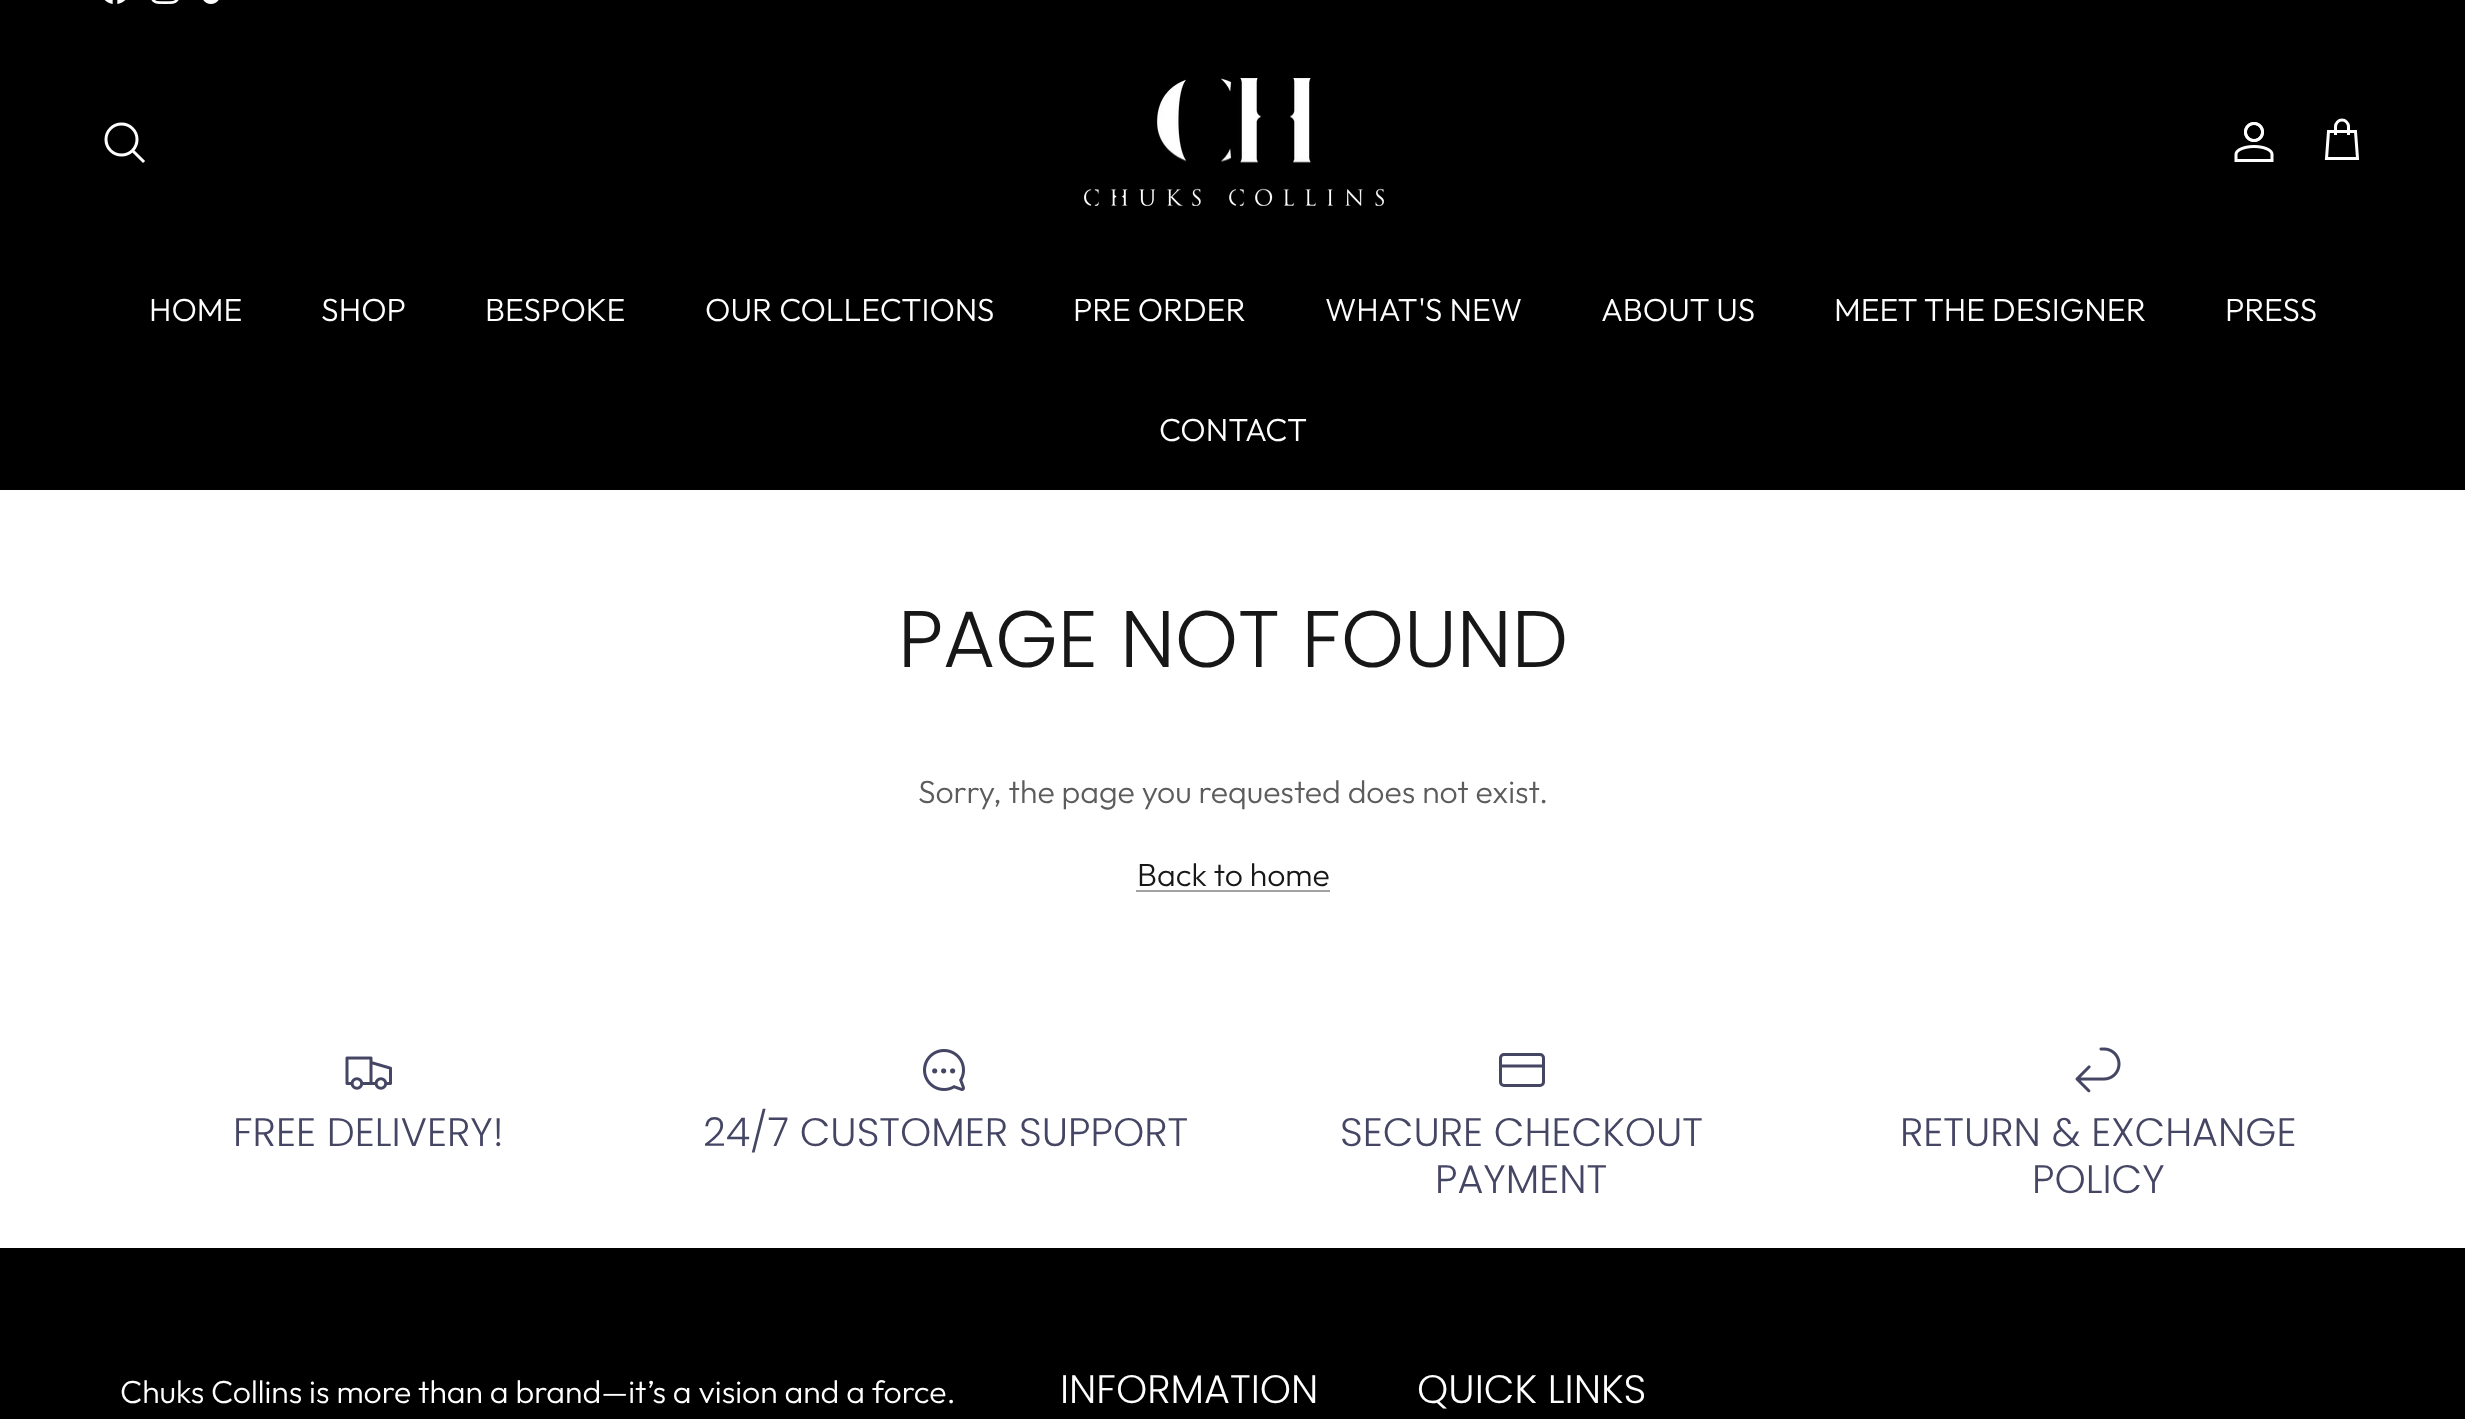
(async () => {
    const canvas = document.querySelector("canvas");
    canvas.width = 2465;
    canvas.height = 1419;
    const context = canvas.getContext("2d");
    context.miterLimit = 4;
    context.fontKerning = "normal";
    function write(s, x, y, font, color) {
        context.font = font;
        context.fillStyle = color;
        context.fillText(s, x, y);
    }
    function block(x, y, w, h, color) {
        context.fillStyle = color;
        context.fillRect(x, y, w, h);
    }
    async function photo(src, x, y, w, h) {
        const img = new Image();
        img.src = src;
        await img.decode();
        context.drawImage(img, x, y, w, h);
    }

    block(0, 0, 2465, 1419, "rgb(255, 255, 255)");
    block(0, 0, 2465, 490, "rgb(0, 0, 0)");
    await photo("media/1.png", 104, 0, 22, 4);
    await photo("media/2.png", 151, 0, 28, 4);
    await photo("media/3.png", 203, 0, 16, 4);
    context.beginPath();
    context.arc(121.5, 139.5, 15.5, 0, Math.PI * 2);
    context.strokeStyle = "rgb(255, 255, 255)";
    context.lineWidth = 3;
    context.stroke();
    context.beginPath();
    context.moveTo(134, 152);
    context.lineTo(143, 161);
    context.lineCap = "square";
    context.stroke();
    await photo("media/4.png", 1084, 78, 300, 128);
    await photo("media/5.png", 2234, 122, 40, 40);
    context.beginPath();
    context.moveTo(2348.5, 135);
    context.lineTo(2348.5, 126.5);
    context.bezierCurveTo(2348.5, 123, 2345.5, 120, 2342, 120);
    context.bezierCurveTo(2338.5, 120, 2335.5, 123, 2335.5, 126.5);
    context.lineTo(2335.5, 135);
    context.moveTo(2328.5, 131.5);
    context.lineTo(2355.5, 131.5);
    context.lineTo(2357.5, 158.5);
    context.lineTo(2326.5, 158.5);
    context.closePath();
    context.lineCap = "butt";
    context.stroke();
    write("HOME", 149, 321, "300 32px Outfit", "rgb(255, 255, 255)");
    write("SHOP", 321, 321, "300 32px Outfit", "rgb(255, 255, 255)");
    write("BESPOKE", 485, 321, "300 32px Outfit", "rgb(255, 255, 255)");
    write("OUR COLLECTIONS", 705, 321, "300 32px Outfit", "rgb(255, 255, 255)");
    write("PRE ORDER", 1073, 321, "300 32px Outfit", "rgb(255, 255, 255)");
    write("WHAT'S NEW", 1325, 321, "300 32px Outfit", "rgb(255, 255, 255)");
    write("ABOUT US", 1601, 321, "300 32px Outfit", "rgb(255, 255, 255)");
    write("MEET THE DESIGNER", 1834, 321, "300 32px Outfit", "rgb(255, 255, 255)");
    write("PRESS", 2225, 321, "300 32px Outfit", "rgb(255, 255, 255)");
    write("CONTACT", 1159, 441, "300 32px Outfit", "rgb(255, 255, 255)");
    write("PAGE NOT FOUND", 898, 667, "300 80px Poppins", "rgb(23, 23, 23)");
    write("Sorry, the page you requested does not exist.", 918, 803, "300 32px Outfit", "rgb(92, 92, 92)");
    write("Back to home", 1137, 886, "300 32px Outfit", "rgb(23, 23, 23)");
    block(1136, 890, 194, 2, "rgb(162, 162, 162)");
    await photo("media/6.png", 345, 1056, 47, 34);
    write("FREE DELIVERY!", 233, 1146, "300 39.75px Poppins", "rgb(69, 69, 100)");
    await photo("media/7.png", 923, 1049, 42, 42);
    write("24/7 CUSTOMER SUPPORT", 703, 1146, "300 39.75px Poppins", "rgb(69, 69, 100)");
    context.beginPath();
    context.roundRect(1500.5, 1054.5, 43, 31, 3.5);
    context.strokeStyle = "rgb(69, 69, 100)";
    context.stroke();
    context.beginPath();
    context.moveTo(1501, 1066);
    context.lineTo(1543.5, 1066);
    context.stroke();
    write("SECURE CHECKOUT", 1340, 1146, "300 39.75px Poppins", "rgb(69, 69, 100)");
    write("PAYMENT", 1435, 1193, "300 39.75px Poppins", "rgb(69, 69, 100)");
    await photo("media/8.png", 2075, 1047, 46, 46);
    write("RETURN & EXCHANGE", 1900, 1146, "300 39.75px Poppins", "rgb(69, 69, 100)");
    write("POLICY", 2032, 1193, "300 39.75px Poppins", "rgb(69, 69, 100)");
    block(0, 1248, 2465, 171, "rgb(0, 0, 0)");
    write("Chuks Collins is more than a brand—it’s a vision and a force.", 120, 1403, "300 32px Outfit", "rgb(255, 255, 255)");
    write("INFORMATION", 1060, 1403, "300 39.75px Poppins", "rgb(255, 255, 255)");
    write("QUICK LINKS", 1417, 1403, "300 39.75px Poppins", "rgb(255, 255, 255)");
})();
